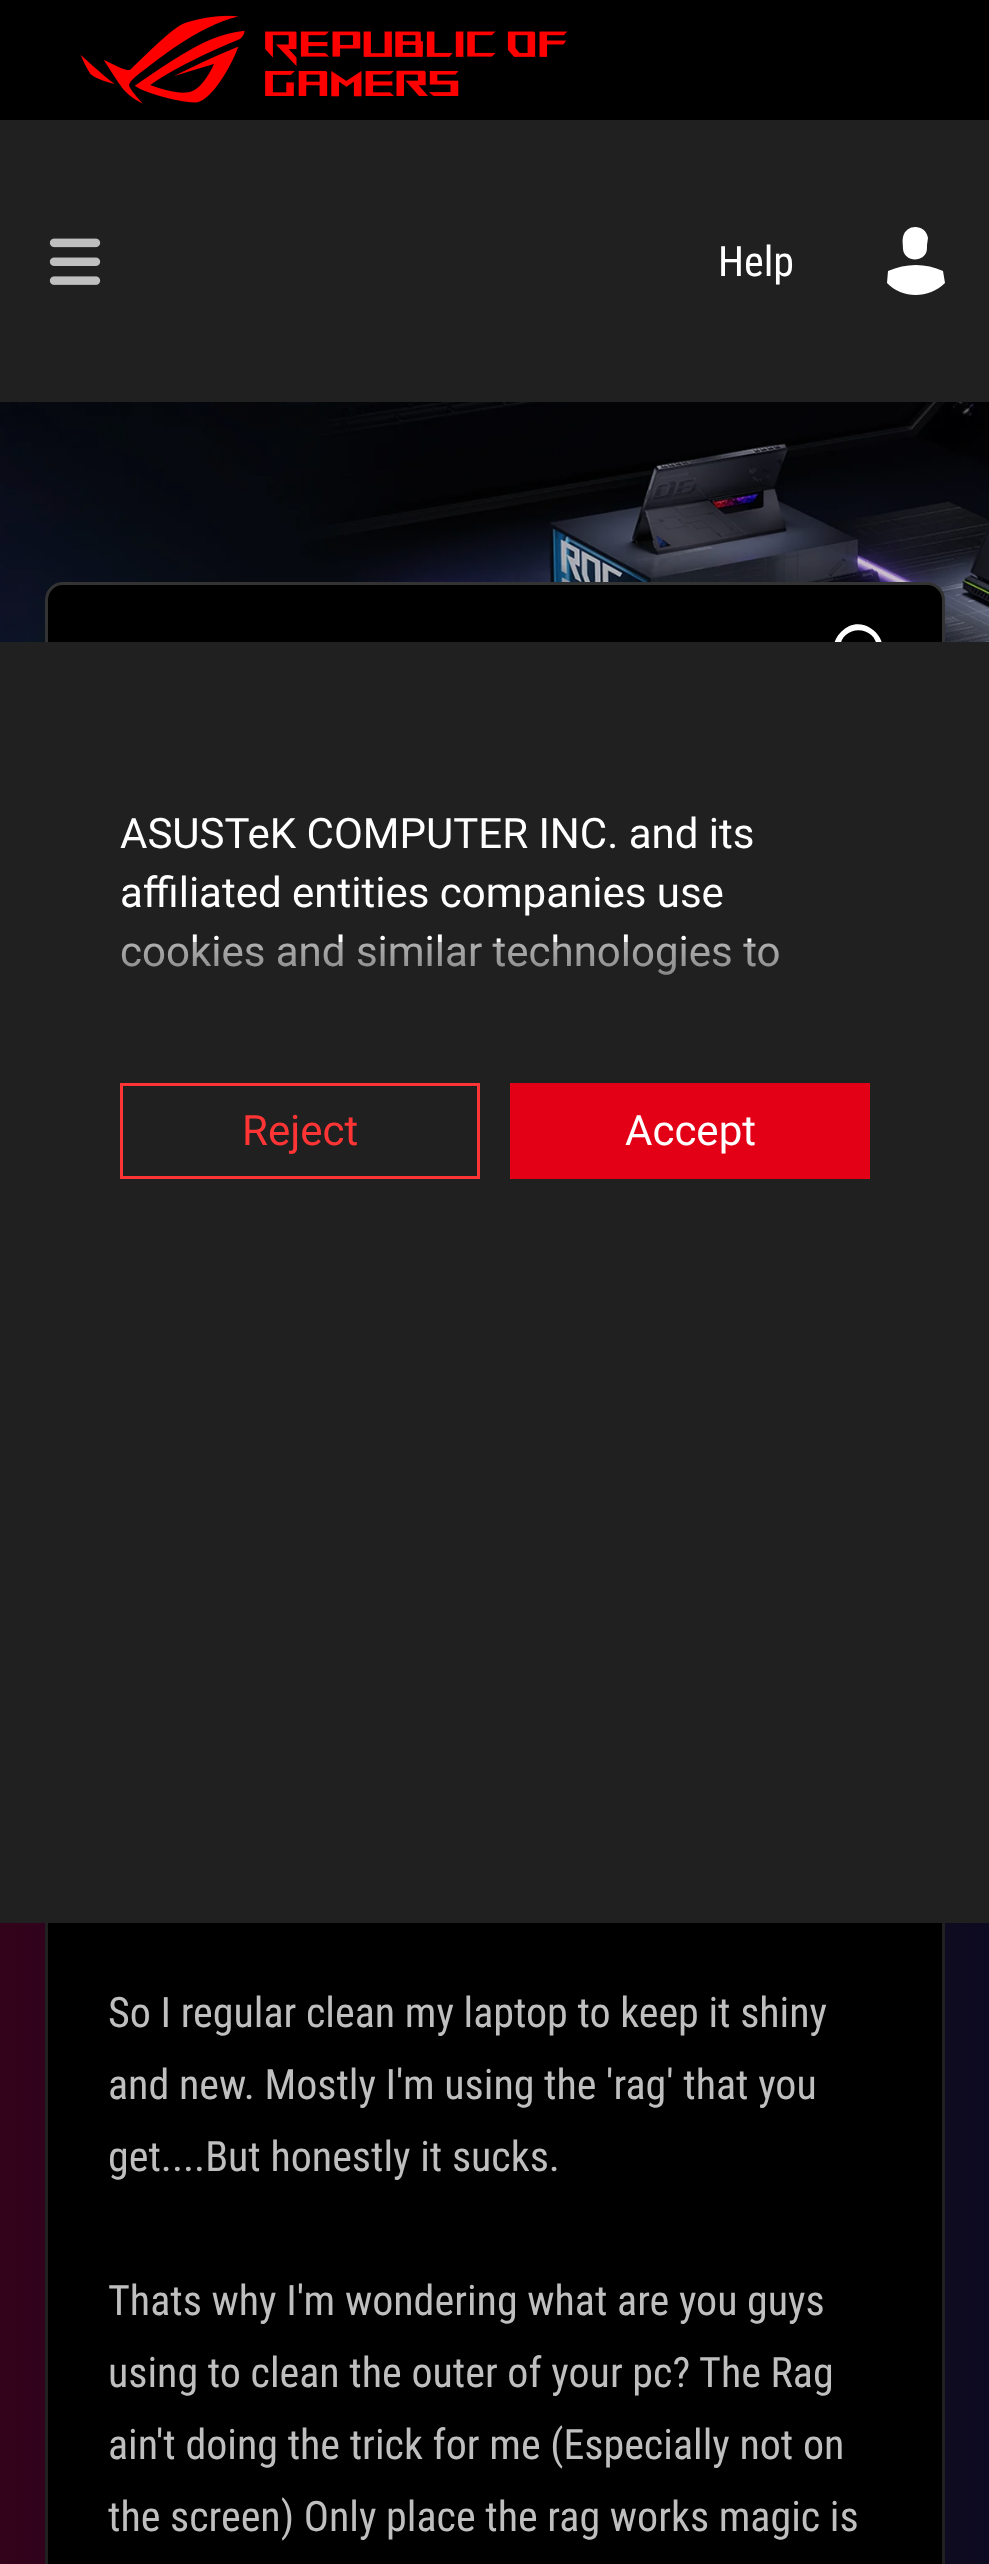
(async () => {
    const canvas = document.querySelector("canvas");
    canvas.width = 989;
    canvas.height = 2564;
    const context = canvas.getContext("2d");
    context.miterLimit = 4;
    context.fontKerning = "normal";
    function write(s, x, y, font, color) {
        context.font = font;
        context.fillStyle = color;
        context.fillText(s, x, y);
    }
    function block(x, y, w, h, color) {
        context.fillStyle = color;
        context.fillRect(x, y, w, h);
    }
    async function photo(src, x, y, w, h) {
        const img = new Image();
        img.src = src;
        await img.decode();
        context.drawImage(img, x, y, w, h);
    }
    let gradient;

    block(0, 0, 989, 2564, "rgb(255, 255, 255)");
    gradient = context.createLinearGradient(0, 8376, 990, 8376);
    gradient.addColorStop(0, "rgb(51, 2, 27)");
    gradient.addColorStop(1, "rgb(13, 11, 33)");
    context.fillStyle = gradient;
    context.fillRect(0, 1923, 989, 641);
    block(0, 0, 989, 120, "rgb(0, 0, 0)");
    await photo("media/1.png", 80, 15, 488, 89);
    block(0, 120, 989, 282, "rgb(32, 32, 32)");
    await photo("media/2.png", 49, 238, 52, 47);
    write("Help", 718, 276, "42px Roboto Condensed", "rgb(255, 255, 255)");
    context.beginPath();
    context.moveTo(945, 283);
    context.bezierCurveTo(929, 299, 902, 299, 887, 283);
    context.lineTo(888, 271);
    context.bezierCurveTo(906, 263, 926, 263, 943, 271);
    context.closePath();
    context.moveTo(903, 249);
    context.bezierCurveTo(903, 245, 902, 241, 903, 237);
    context.bezierCurveTo(906, 223, 926, 224, 928, 238);
    context.lineTo(927, 245);
    context.bezierCurveTo(927, 248, 927, 251, 926, 253);
    context.bezierCurveTo(921, 263, 904, 261, 903, 249);
    context.closePath();
    context.fill();
    await photo("media/3.png", 0, 402, 989, 240);
    context.fillStyle = "rgb(0, 0, 0)";
    context.beginPath();
    context.roundRect(46.5, 583.5, 897, 141, 16.5);
    context.fill();
    context.strokeStyle = "rgb(51, 51, 51)";
    context.lineWidth = 3;
    context.stroke();
    context.fillStyle = "rgb(255, 255, 255)";
    context.beginPath();
    context.moveTo(894, 681);
    context.bezierCurveTo(890, 685, 890, 686, 887, 682);
    context.lineTo(877, 672);
    context.bezierCurveTo(875, 670, 874, 670, 874, 667);
    context.bezierCurveTo(851, 687, 819, 654, 841, 632);
    context.bezierCurveTo(863, 609, 897, 642, 877, 665);
    context.bezierCurveTo(880, 665, 879, 665, 882, 668);
    context.lineTo(886, 672);
    context.bezierCurveTo(888, 674, 896, 679, 894, 681);
    context.closePath();
    context.moveTo(840, 649);
    context.bezierCurveTo(840, 673, 877, 673, 877, 649);
    context.bezierCurveTo(877, 624, 840, 624, 840, 649);
    context.closePath();
    context.fill("evenodd");
    block(48, 1923, 894, 641, "rgb(0, 0, 0)");
    context.strokeStyle = "rgb(32, 32, 32)";
    context.strokeRect(46.5, 1129.5, 897, 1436);
    write("So I regular clean my laptop to keep it shiny", 108, 2027, "42px Roboto Condensed", "rgb(191, 191, 191)");
    write("and new. Mostly I'm using the 'rag' that you", 108, 2099, "42px Roboto Condensed", "rgb(191, 191, 191)");
    write("get....But honestly it sucks.", 108, 2171, "42px Roboto Condensed", "rgb(191, 191, 191)");
    write("Thats why I'm wondering what are you guys", 108, 2315, "42px Roboto Condensed", "rgb(191, 191, 191)");
    write("using to clean the outer of your pc? The Rag", 108, 2387, "42px Roboto Condensed", "rgb(191, 191, 191)");
    write("ain't doing the trick for me (Especially not on", 108, 2459, "42px Roboto Condensed", "rgb(191, 191, 191)");
    write("the screen) Only place the rag works magic is", 108, 2531, "42px Roboto Condensed", "rgb(191, 191, 191)");
    block(0, 642, 989, 1281, "rgb(32, 32, 32)");
    write("ASUSTeK COMPUTER INC. and its", 120, 848, "42px Roboto", "rgb(255, 255, 255)");
    write("affiliated entities companies use", 120, 907, "42px Roboto", "rgb(255, 255, 255)");
    write("cookies and similar technologies to", 120, 966, "42px Roboto", "rgb(255, 255, 255)");
    gradient = context.createLinearGradient(495, 943, 495, 1060);
    gradient.addColorStop(0, "rgba(32, 32, 32, 0.36)");
    gradient.addColorStop(1, "rgb(32, 32, 32)");
    context.fillStyle = gradient;
    context.fillRect(121, 942, 658, 33);
    context.strokeStyle = "rgb(255, 53, 53)";
    context.strokeRect(121.5, 1084.5, 357, 93);
    write("Reject", 242, 1145, "42px Roboto", "rgb(255, 53, 53)");
    block(510, 1083, 360, 96, "rgb(227, 0, 23)");
    write("Accept", 625, 1145, "42px Roboto", "rgb(255, 255, 255)");
})();
